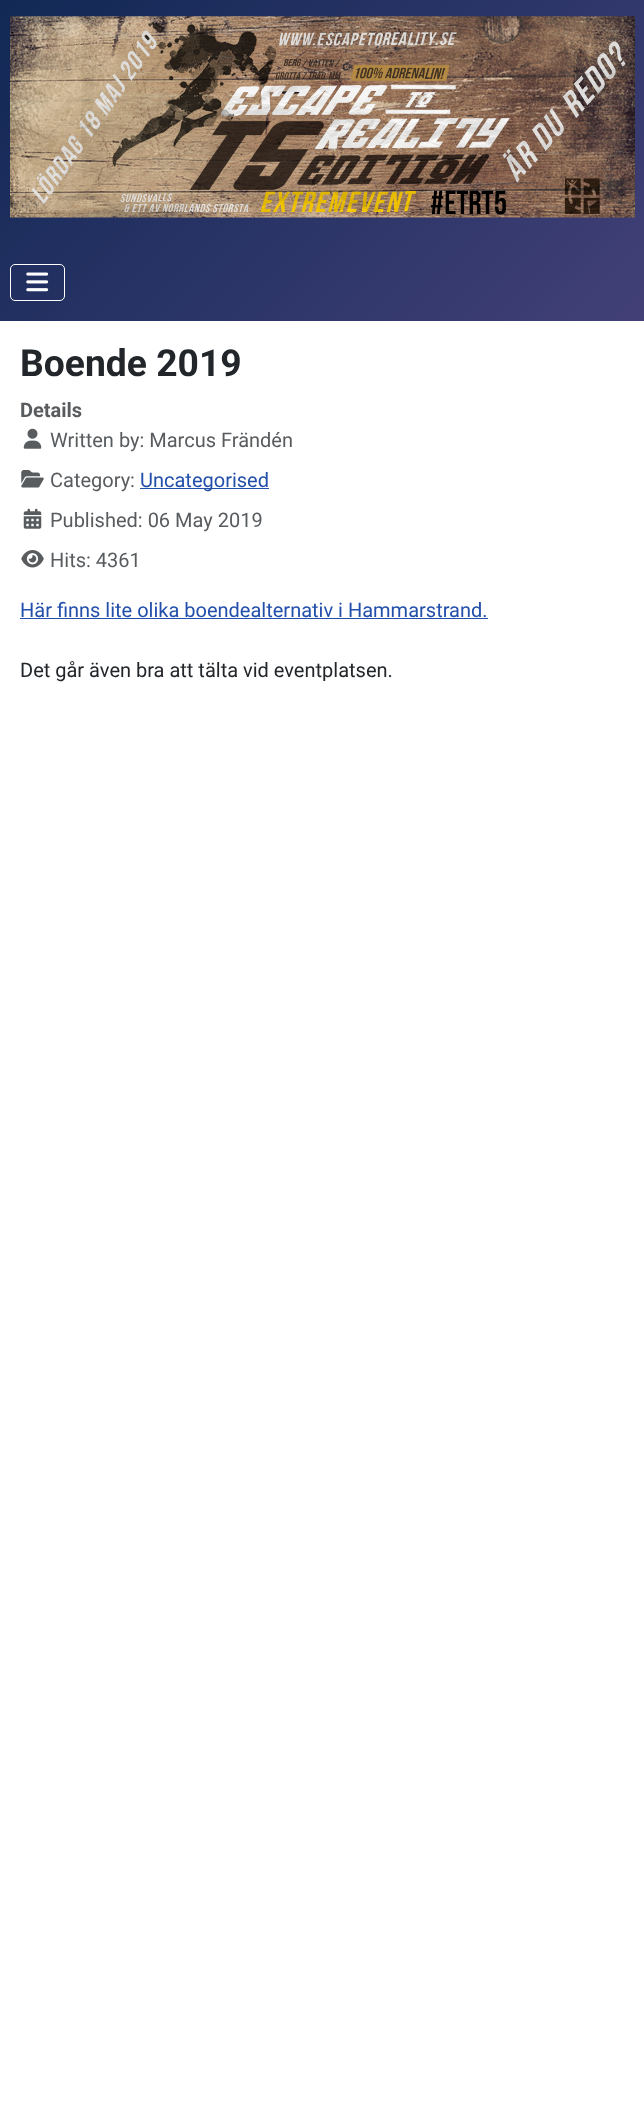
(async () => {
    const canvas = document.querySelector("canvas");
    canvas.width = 644;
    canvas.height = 2128;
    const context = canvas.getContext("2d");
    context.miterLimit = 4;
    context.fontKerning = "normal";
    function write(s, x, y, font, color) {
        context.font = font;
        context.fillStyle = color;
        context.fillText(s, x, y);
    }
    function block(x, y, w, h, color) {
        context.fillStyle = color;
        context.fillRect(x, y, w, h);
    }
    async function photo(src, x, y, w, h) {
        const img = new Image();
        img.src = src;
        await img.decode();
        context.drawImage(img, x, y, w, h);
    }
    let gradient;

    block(0, 0, 644, 2128, "rgb(255, 255, 255)");
    gradient = context.createLinearGradient(81, -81, 564, 402);
    gradient.addColorStop(0, "rgb(17, 40, 85)");
    gradient.addColorStop(1, "rgb(66, 64, 119)");
    context.fillStyle = gradient;
    context.fillRect(0, 0, 644, 321);
    await photo("media/1.png", 10, 16, 625, 202);
    context.beginPath();
    context.roundRect(10.5, 264.5, 54, 36, 4.5);
    context.strokeStyle = "rgb(255, 255, 255)";
    context.stroke();
    await photo("media/2.png", 26, 272, 23, 20);
    write("Boende 2019", 20, 376, "bold 37.25px Roboto", "rgb(34, 38, 42)");
    write("Details", 20, 417, "bold 20px Roboto", "rgb(89, 92, 95)");
    await photo("media/3.png", 23, 428, 19, 21);
    write("Written by: Marcus Frändén", 50, 447, "20px Roboto", "rgb(89, 92, 95)");
    await photo("media/4.png", 21, 470, 23, 18);
    write("Category:", 50, 487, "20px Roboto", "rgb(89, 92, 95)");
    block(140, 488, 129, 1, "rgb(34, 79, 170)");
    write("Uncategorised", 140, 487, "20px Roboto", "rgb(34, 79, 170)");
    await photo("media/5.png", 23, 508, 19, 21);
    write("Published: 06 May 2019", 50, 527, "20px Roboto", "rgb(89, 92, 95)");
    await photo("media/6.png", 21, 550, 23, 18);
    write("Hits: 4361", 50, 567, "20px Roboto", "rgb(89, 92, 95)");
    write("Här finns lite olika boendealternativ i Hammarstrand.", 20, 617, "20px Roboto", "rgb(34, 79, 170)");
    block(20, 618, 468, 1, "rgb(34, 79, 170)");
    write("Det går även bra att tälta vid eventplatsen.", 20, 677, "20px Roboto", "rgb(34, 38, 42)");
})();
